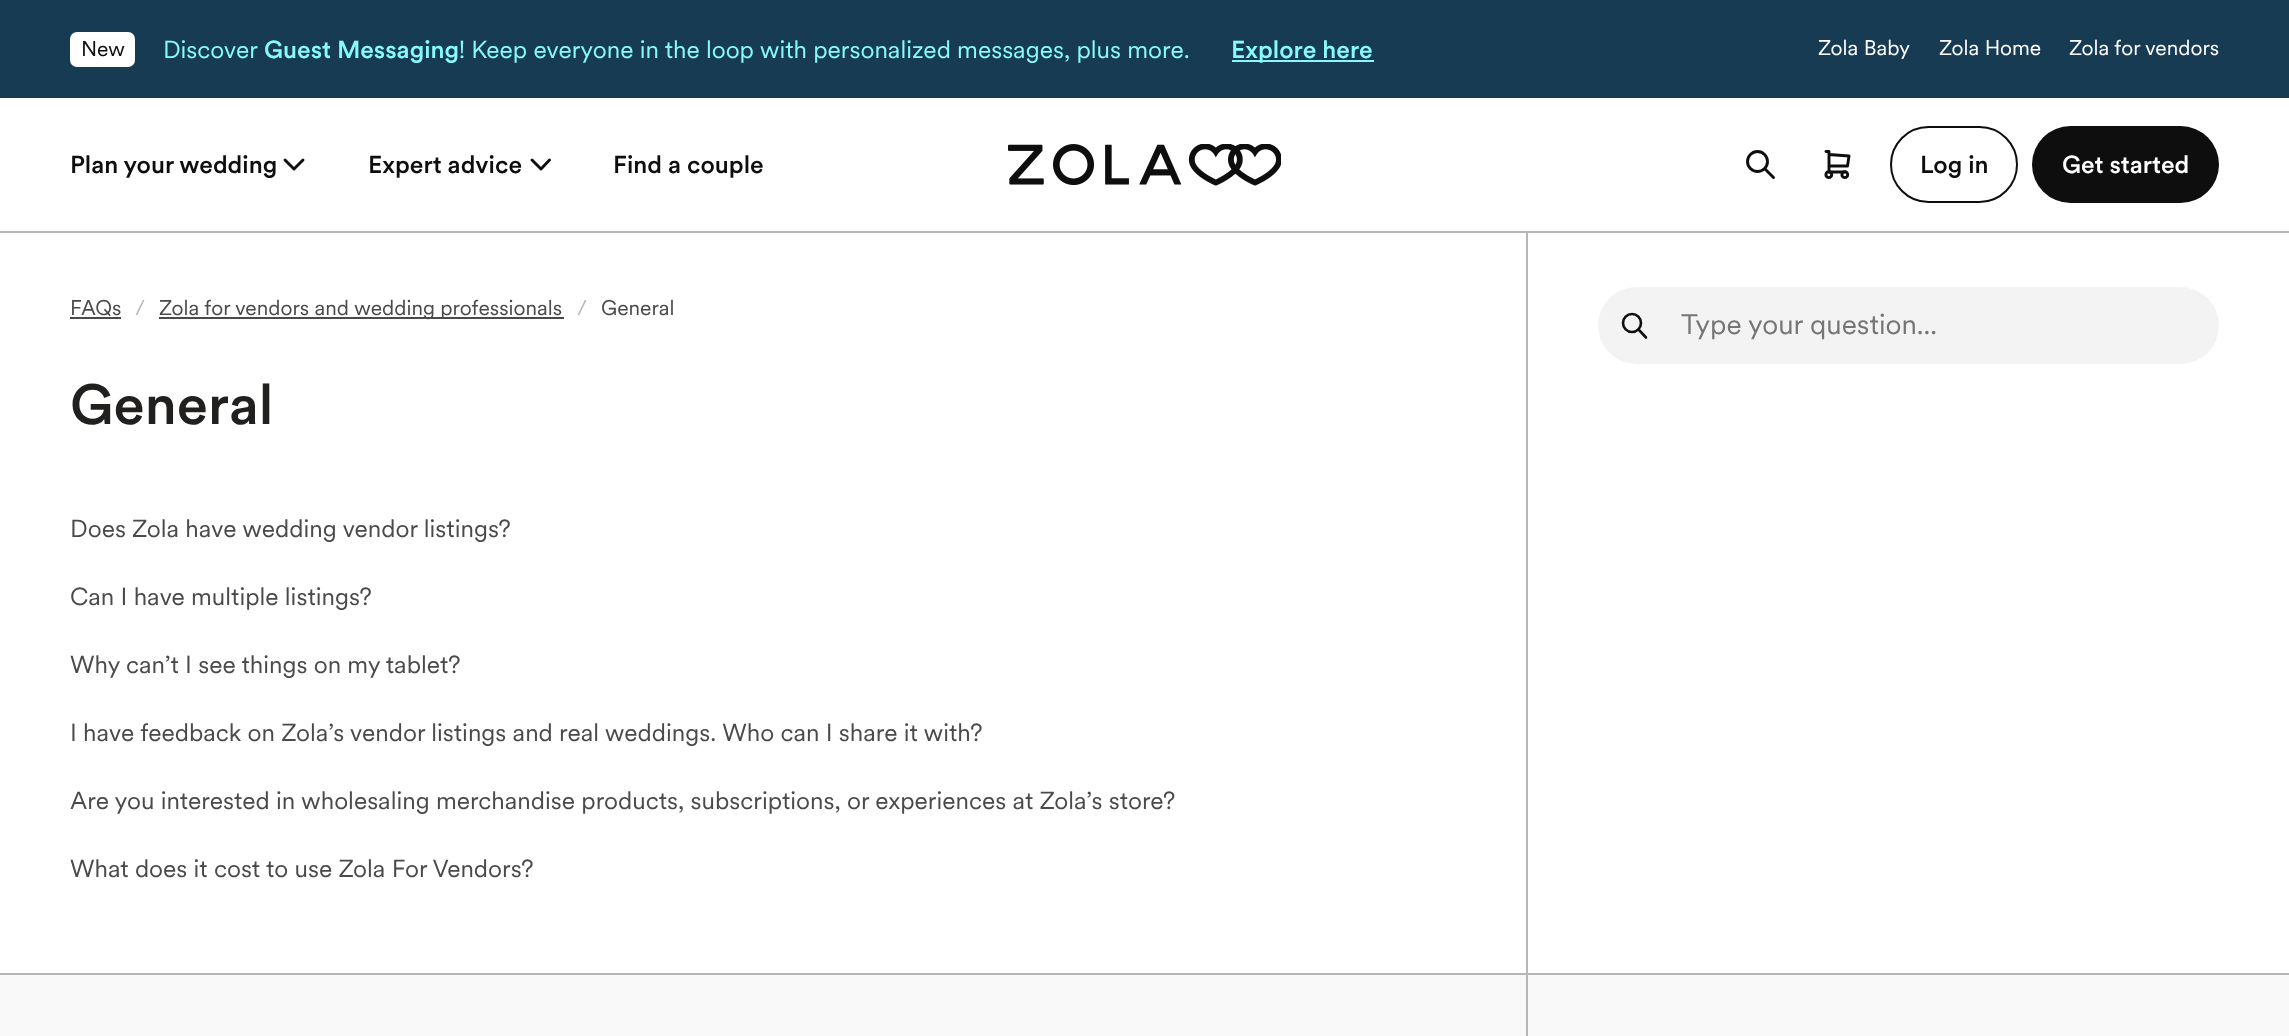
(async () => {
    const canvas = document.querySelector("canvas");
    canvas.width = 2289;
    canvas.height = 1036;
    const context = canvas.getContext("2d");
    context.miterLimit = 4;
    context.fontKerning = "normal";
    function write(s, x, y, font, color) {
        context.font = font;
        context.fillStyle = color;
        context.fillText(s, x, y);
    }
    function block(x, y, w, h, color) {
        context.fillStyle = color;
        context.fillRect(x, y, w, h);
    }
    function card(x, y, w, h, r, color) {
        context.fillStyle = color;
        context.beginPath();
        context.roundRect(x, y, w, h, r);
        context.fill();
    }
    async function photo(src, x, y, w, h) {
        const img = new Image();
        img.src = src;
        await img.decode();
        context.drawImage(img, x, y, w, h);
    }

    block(0, 0, 2289, 1036, "rgb(255, 255, 255)");
    block(1526, 231, 2, 742, "rgb(183, 183, 183)");
    block(0, 231, 2289, 2, "rgb(183, 183, 183)");
    block(0, 0, 2289, 98, "rgb(24, 59, 84)");
    card(70, 32, 65, 35, 7, "rgb(255, 255, 255)");
    write("New", 81, 56, "21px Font", "rgb(14, 14, 14)");
    write("Discover", 163, 58, "24.5px Font", "rgb(137, 250, 252)");
    write("Guest Messaging", 264, 58, "500 24.5px Font", "rgb(137, 250, 252)");
    write("! Keep everyone in the loop with personalized messages, plus more.", 459, 58, "24.5px Font", "rgb(137, 250, 252)");
    block(1232, 60, 142, 2, "rgb(137, 250, 252)");
    write("Explore here", 1231, 58, "500 24.5px Font", "rgb(137, 250, 252)");
    write("Zola Baby", 1818, 55, "21px Font", "rgb(255, 255, 255)");
    write("Zola Home", 1939, 55, "21px Font", "rgb(255, 255, 255)");
    write("Zola for vendors", 2069, 55, "21px Font", "rgb(255, 255, 255)");
    write("Plan your wedding", 70, 173, "500 24.5px Font", "rgb(14, 14, 14)");
    context.beginPath();
    context.moveTo(285, 160);
    context.lineTo(294, 169);
    context.lineTo(303, 160);
    context.strokeStyle = "rgb(14, 14, 14)";
    context.lineWidth = 2.9;
    context.lineCap = "round";
    context.lineJoin = "round";
    context.stroke();
    write("Expert advice", 368, 173, "500 24.5px Font", "rgb(14, 14, 14)");
    context.beginPath();
    context.moveTo(532, 160);
    context.lineTo(541, 169);
    context.lineTo(549.5, 160);
    context.stroke();
    write("Find a couple", 613, 173, "500 24.5px Font", "rgb(14, 14, 14)");
    await photo("media/1.png", 1008, 144, 273, 42);
    context.beginPath();
    context.arc(1757.5, 161.5, 10, 0, Math.PI * 2);
    context.stroke();
    context.beginPath();
    context.moveTo(1773.5, 177.5);
    context.lineTo(1765, 169);
    context.stroke();
    context.beginPath();
    context.arc(1828.8, 174.7, 2.9, 0, Math.PI * 2);
    context.stroke();
    context.beginPath();
    context.arc(1844.8, 174.7, 2.9, 0, Math.PI * 2);
    context.stroke();
    context.beginPath();
    context.moveTo(1845, 172);
    context.lineTo(1829, 172);
    context.lineTo(1829, 151.5);
    context.lineTo(1826, 151.5);
    context.moveTo(1829, 154.5);
    context.lineTo(1849, 156);
    context.lineTo(1847.5, 166);
    context.lineTo(1829, 166);
    context.stroke();
    context.beginPath();
    context.roundRect(1891, 127, 126, 75, 37.5);
    context.lineWidth = 2;
    context.lineJoin = "miter";
    context.stroke();
    write("Log in", 1920, 173, "500 24.5px Font", "rgb(14, 14, 14)");
    card(2032, 126, 187, 77, 38.5, "rgb(14, 14, 14)");
    write("Get started", 2062, 173, "500 24.5px Font", "rgb(255, 255, 255)");
    write("FAQs", 70, 315, "21px Font", "rgb(74, 74, 74)");
    block(70, 317, 51, 2, "rgb(74, 74, 74)");
    write("/", 135, 315, "21px Font", "rgb(183, 183, 183)");
    block(159, 317, 405, 2, "rgb(74, 74, 74)");
    write("Zola for vendors and wedding professionals", 159, 315, "21px Font", "rgb(74, 74, 74)");
    write("/", 577, 315, "21px Font", "rgb(183, 183, 183)");
    write("General", 601, 315, "21px Font", "rgb(74, 74, 74)");
    write("General", 70, 424, "500 56px Font", "rgb(33, 32, 31)");
    write("Does Zola have wedding vendor listings?", 70, 537, "24.5px Font", "rgb(74, 74, 74)");
    write("Can I have multiple listings?", 70, 605, "24.5px Font", "rgb(74, 74, 74)");
    write("Why can’t I see things on my tablet?", 70, 673, "24.5px Font", "rgb(74, 74, 74)");
    write("I have feedback on Zola’s vendor listings and real weddings. Who can I share it with?", 70, 741, "24.5px Font", "rgb(74, 74, 74)");
    write("Are you interested in wholesaling merchandise products, subscriptions, or experiences at Zola’s store?", 70, 809, "24.5px Font", "rgb(74, 74, 74)");
    write("What does it cost to use Zola For Vendors?", 70, 877, "24.5px Font", "rgb(74, 74, 74)");
    card(1598, 287, 621, 77, 38.5, "rgb(243, 243, 243)");
    context.beginPath();
    context.arc(1632, 323, 9, 0, Math.PI * 2);
    context.lineWidth = 2.6;
    context.stroke();
    context.beginPath();
    context.moveTo(1646, 337.5);
    context.lineTo(1638.5, 329.5);
    context.lineJoin = "round";
    context.stroke();
    write("Type your question...", 1681, 334, "28px Font", "rgb(117, 117, 117)");
    block(0, 975, 2289, 61, "rgb(249, 249, 249)");
    block(0, 973, 2289, 2, "rgb(183, 183, 183)");
    block(1526, 975, 2, 61, "rgb(183, 183, 183)");
})();
